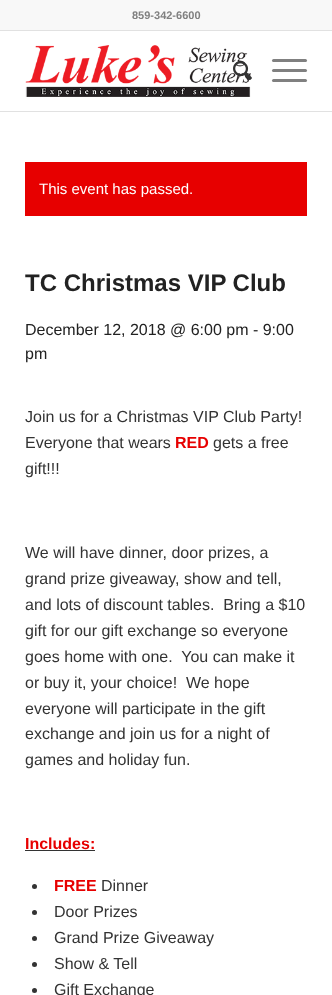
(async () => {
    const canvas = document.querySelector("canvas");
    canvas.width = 332;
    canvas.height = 995;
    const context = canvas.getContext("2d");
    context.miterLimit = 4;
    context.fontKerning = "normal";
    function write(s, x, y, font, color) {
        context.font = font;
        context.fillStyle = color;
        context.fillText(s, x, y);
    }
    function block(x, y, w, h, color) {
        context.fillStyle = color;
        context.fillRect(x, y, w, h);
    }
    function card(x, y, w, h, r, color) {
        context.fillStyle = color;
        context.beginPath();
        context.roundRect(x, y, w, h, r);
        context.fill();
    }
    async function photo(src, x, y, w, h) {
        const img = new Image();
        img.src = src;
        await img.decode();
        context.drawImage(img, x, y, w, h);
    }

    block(0, 0, 332, 995, "rgb(255, 255, 255)");
    block(0, 0, 332, 30, "rgb(248, 248, 248)");
    block(0, 30, 332, 1, "rgb(225, 225, 225)");
    write("859-342-6600", 132, 19, "bold 11px Liberation Sans", "rgb(128, 128, 128)");
    block(0, 111, 332, 1, "rgb(225, 225, 225)");
    await photo("media/1.png", 25, 45, 226, 52);
    await photo("media/2.png", 233, 61, 19, 20);
    card(272, 69, 35, 3, 1.5, "rgb(128, 128, 128)");
    card(272, 59, 35, 3, 1.5, "rgb(128, 128, 128)");
    card(272, 79, 35, 3, 1.5, "rgb(128, 128, 128)");
    block(25, 162, 282, 54, "rgb(231, 0, 0)");
    write("This event has passed.", 39, 194, "15px Liberation Sans", "rgb(255, 255, 255)");
    write("TC Christmas VIP Club", 25, 291, "bold 24px Liberation Sans", "rgb(34, 34, 34)");
    write("December 12, 2018 @ 6:00 pm - 9:00", 25, 335, "16px Liberation Sans", "rgb(34, 34, 34)");
    write("pm", 25, 359, "16px Liberation Sans", "rgb(34, 34, 34)");
    write("Join us for a Christmas VIP Club Party!", 25, 422, "16px Liberation Sans", "rgb(51, 51, 51)");
    write("Everyone that wears", 25, 448, "16px Liberation Sans", "rgb(51, 51, 51)");
    write("RED", 175, 448, "bold 16px Liberation Sans", "rgb(231, 0, 0)");
    write("gets a free", 213, 448, "16px Liberation Sans", "rgb(51, 51, 51)");
    write("gift!!!", 25, 474, "16px Liberation Sans", "rgb(51, 51, 51)");
    write("We will have dinner, door prizes, a", 25, 558, "16px Liberation Sans", "rgb(51, 51, 51)");
    write("grand prize giveaway, show and tell,", 25, 584, "16px Liberation Sans", "rgb(51, 51, 51)");
    write("and lots of discount tables.  Bring a $10", 25, 610, "16px Liberation Sans", "rgb(51, 51, 51)");
    write("gift for our gift exchange so everyone", 25, 636, "16px Liberation Sans", "rgb(51, 51, 51)");
    write("goes home with one.  You can make it", 25, 662, "16px Liberation Sans", "rgb(51, 51, 51)");
    write("or buy it, your choice!  We hope", 25, 688, "16px Liberation Sans", "rgb(51, 51, 51)");
    write("everyone will participate in the gift", 25, 714, "16px Liberation Sans", "rgb(51, 51, 51)");
    write("exchange and join us for a night of", 25, 739, "16px Liberation Sans", "rgb(51, 51, 51)");
    write("games and holiday fun.", 25, 765, "16px Liberation Sans", "rgb(51, 51, 51)");
    write("Includes:", 25, 849, "bold 16px Liberation Sans", "rgb(231, 0, 0)");
    block(25, 850, 70, 1, "rgb(51, 51, 51)");
    context.beginPath();
    context.arc(34.5, 886.5, 2.5, 0, Math.PI * 2);
    context.fill();
    write("FREE", 54, 891, "bold 16px Liberation Sans", "rgb(231, 0, 0)");
    write("Dinner", 101, 891, "16px Liberation Sans", "rgb(51, 51, 51)");
    context.beginPath();
    context.arc(34.5, 912.5, 2.5, 0, Math.PI * 2);
    context.fill();
    write("Door Prizes", 54, 917, "16px Liberation Sans", "rgb(51, 51, 51)");
    context.beginPath();
    context.arc(34.5, 938.5, 2.5, 0, Math.PI * 2);
    context.fill();
    write("Grand Prize Giveaway", 54, 943, "16px Liberation Sans", "rgb(51, 51, 51)");
    context.beginPath();
    context.arc(34.5, 964.5, 2.5, 0, Math.PI * 2);
    context.fill();
    write("Show & Tell", 54, 969, "16px Liberation Sans", "rgb(51, 51, 51)");
    context.beginPath();
    context.arc(34.5, 990.5, 2.5, 0, Math.PI * 2);
    context.fill();
    write("Gift Exchange", 54, 995, "16px Liberation Sans", "rgb(51, 51, 51)");
})();
